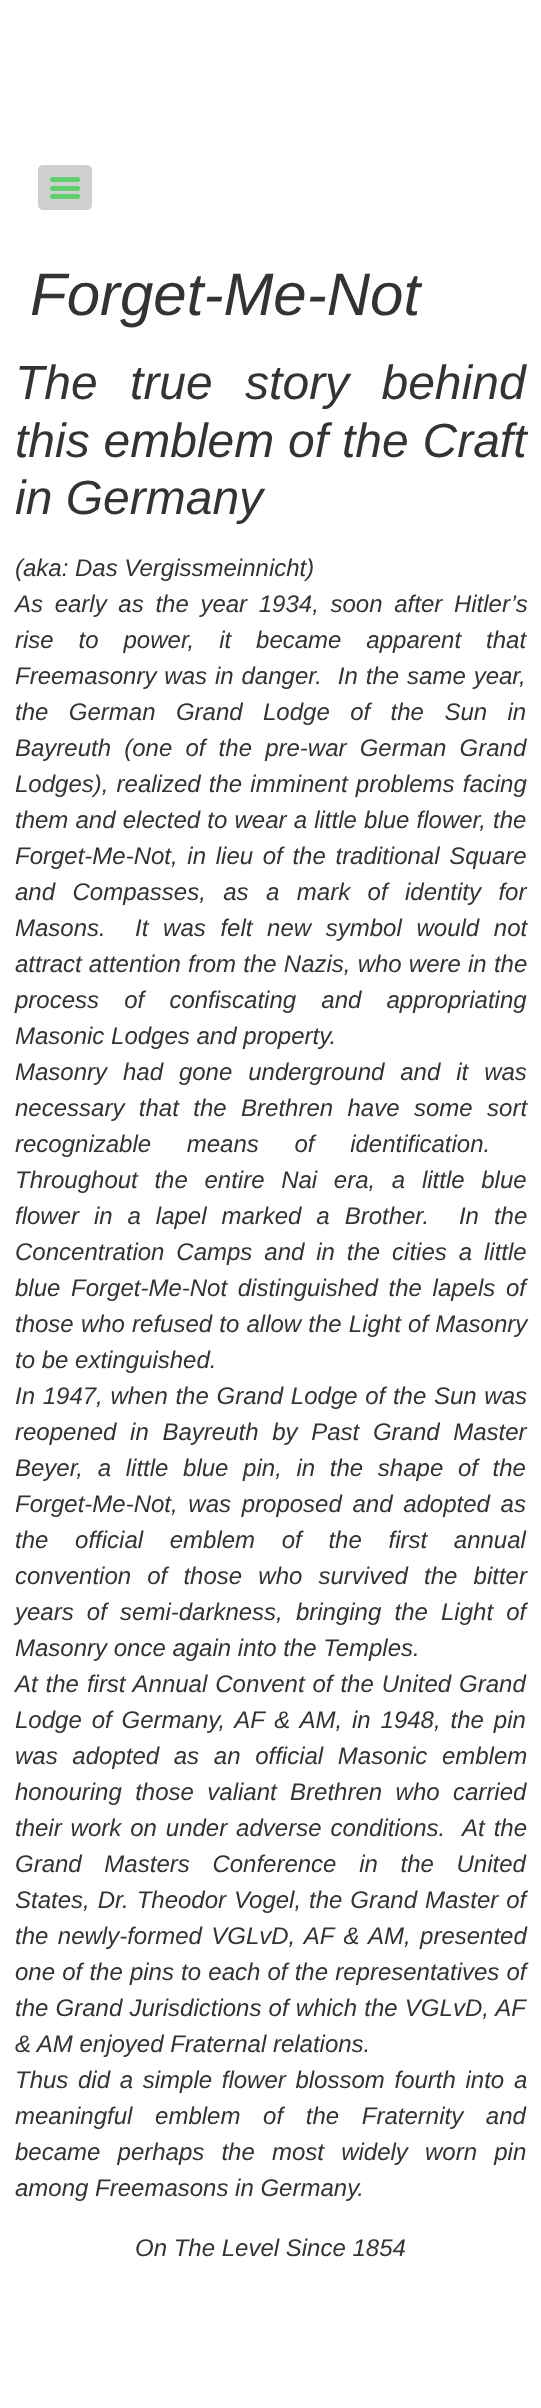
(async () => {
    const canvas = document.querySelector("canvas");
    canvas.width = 541;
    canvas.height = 2408;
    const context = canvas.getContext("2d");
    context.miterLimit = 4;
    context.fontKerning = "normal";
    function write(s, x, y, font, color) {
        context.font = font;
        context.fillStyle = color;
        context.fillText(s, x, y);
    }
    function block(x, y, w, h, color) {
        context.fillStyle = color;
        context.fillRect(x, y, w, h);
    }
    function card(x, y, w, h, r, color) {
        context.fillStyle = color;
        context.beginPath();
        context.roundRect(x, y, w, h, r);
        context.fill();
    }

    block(0, 0, 541, 2408, "rgb(255, 255, 255)");
    card(38, 165, 54, 45, 5, "rgb(205, 207, 209)");
    card(50, 186, 30, 5, 2.5, "rgb(97, 206, 112)");
    card(50, 177, 30, 5, 2.5, "rgb(97, 206, 112)");
    card(50, 194, 30, 5, 2.5, "rgb(97, 206, 112)");
    write("Forget-Me-Not", 30, 315, "italic 60px Liberation Sans", "rgb(51, 51, 51)");
    context.wordSpacing = "19px";
    write("The true story behind", 15, 399, "italic 48px Liberation Sans", "rgb(51, 51, 51)");
    context.wordSpacing = "0.5px";
    write("this emblem of the Craft", 15, 457, "italic 48px Liberation Sans", "rgb(51, 51, 51)");
    context.wordSpacing = "0px";
    write("in Germany", 15, 514, "italic 48px Liberation Sans", "rgb(51, 51, 51)");
    write("(aka: Das Vergissmeinnicht)", 15, 576, "italic 24px Liberation Sans", "rgb(51, 51, 51)");
    context.wordSpacing = "5px";
    write("As early as the year 1934, soon after Hitler’s", 15, 612, "italic 24px Liberation Sans", "rgb(51, 51, 51)");
    context.wordSpacing = "18.25px";
    write("rise to power, it became apparent that", 15, 648, "italic 24px Liberation Sans", "rgb(51, 51, 51)");
    context.wordSpacing = "1.25px";
    write("Freemasonry was in danger.  In the same year,", 15, 684, "italic 24px Liberation Sans", "rgb(51, 51, 51)");
    context.wordSpacing = "13.75px";
    write("the German Grand Lodge of the Sun in", 15, 720, "italic 24px Liberation Sans", "rgb(51, 51, 51)");
    context.wordSpacing = "6.5px";
    write("Bayreuth (one of the pre-war German Grand", 15, 756, "italic 24px Liberation Sans", "rgb(51, 51, 51)");
    context.wordSpacing = "1.5px";
    write("Lodges), realized the imminent problems facing", 15, 792, "italic 24px Liberation Sans", "rgb(51, 51, 51)");
    context.wordSpacing = "0.5px";
    write("them and elected to wear a little blue flower, the", 15, 828, "italic 24px Liberation Sans", "rgb(51, 51, 51)");
    context.wordSpacing = "3px";
    write("Forget-Me-Not, in lieu of the traditional Square", 15, 864, "italic 24px Liberation Sans", "rgb(51, 51, 51)");
    context.wordSpacing = "10.75px";
    write("and Compasses, as a mark of identity for", 15, 900, "italic 24px Liberation Sans", "rgb(51, 51, 51)");
    context.wordSpacing = "8px";
    write("Masons.  It was felt new symbol would not", 15, 936, "italic 24px Liberation Sans", "rgb(51, 51, 51)");
    context.wordSpacing = "0.5px";
    write("attract attention from the Nazis, who were in the", 15, 972, "italic 24px Liberation Sans", "rgb(51, 51, 51)");
    context.wordSpacing = "18.5px";
    write("process of confiscating and appropriating", 15, 1008, "italic 24px Liberation Sans", "rgb(51, 51, 51)");
    context.wordSpacing = "0px";
    write("Masonic Lodges and property.", 15, 1044, "italic 24px Liberation Sans", "rgb(51, 51, 51)");
    context.wordSpacing = "9.25px";
    write("Masonry had gone underground and it was", 15, 1080, "italic 24px Liberation Sans", "rgb(51, 51, 51)");
    context.wordSpacing = "7.75px";
    write("necessary that the Brethren have some sort", 15, 1116, "italic 24px Liberation Sans", "rgb(51, 51, 51)");
    context.wordSpacing = "29px";
    write("recognizable means of identification.", 15, 1152, "italic 24px Liberation Sans", "rgb(51, 51, 51)");
    context.wordSpacing = "10px";
    write("Throughout the entire Nai era, a little blue", 15, 1188, "italic 24px Liberation Sans", "rgb(51, 51, 51)");
    context.wordSpacing = "8.25px";
    write("flower in a lapel marked a Brother.  In the", 15, 1224, "italic 24px Liberation Sans", "rgb(51, 51, 51)");
    context.wordSpacing = "5.25px";
    write("Concentration Camps and in the cities a little", 15, 1260, "italic 24px Liberation Sans", "rgb(51, 51, 51)");
    context.wordSpacing = "4px";
    write("blue Forget-Me-Not distinguished the lapels of", 15, 1296, "italic 24px Liberation Sans", "rgb(51, 51, 51)");
    context.wordSpacing = "0.5px";
    write("those who refused to allow the Light of Masonry", 15, 1332, "italic 24px Liberation Sans", "rgb(51, 51, 51)");
    context.wordSpacing = "0px";
    write("to be extinguished.", 15, 1368, "italic 24px Liberation Sans", "rgb(51, 51, 51)");
    context.wordSpacing = "1px";
    write("In 1947, when the Grand Lodge of the Sun was", 15, 1404, "italic 24px Liberation Sans", "rgb(51, 51, 51)");
    context.wordSpacing = "7px";
    write("reopened in Bayreuth by Past Grand Master", 15, 1440, "italic 24px Liberation Sans", "rgb(51, 51, 51)");
    context.wordSpacing = "8px";
    write("Beyer, a little blue pin, in the shape of the", 15, 1476, "italic 24px Liberation Sans", "rgb(51, 51, 51)");
    context.wordSpacing = "4px";
    write("Forget-Me-Not, was proposed and adopted as", 15, 1512, "italic 24px Liberation Sans", "rgb(51, 51, 51)");
    context.wordSpacing = "20px";
    write("the official emblem of the first annual", 15, 1548, "italic 24px Liberation Sans", "rgb(51, 51, 51)");
    context.wordSpacing = "9.5px";
    write("convention of those who survived the bitter", 15, 1584, "italic 24px Liberation Sans", "rgb(51, 51, 51)");
    context.wordSpacing = "6.5px";
    write("years of semi-darkness, bringing the Light of", 15, 1620, "italic 24px Liberation Sans", "rgb(51, 51, 51)");
    context.wordSpacing = "0px";
    write("Masonry once again into the Temples.", 15, 1656, "italic 24px Liberation Sans", "rgb(51, 51, 51)");
    context.wordSpacing = "1.25px";
    write("At the first Annual Convent of the United Grand", 15, 1692, "italic 24px Liberation Sans", "rgb(51, 51, 51)");
    context.wordSpacing = "3.25px";
    write("Lodge of Germany, AF & AM, in 1948, the pin", 15, 1728, "italic 24px Liberation Sans", "rgb(51, 51, 51)");
    context.wordSpacing = "8px";
    write("was adopted as an official Masonic emblem", 15, 1764, "italic 24px Liberation Sans", "rgb(51, 51, 51)");
    context.wordSpacing = "6.75px";
    write("honouring those valiant Brethren who carried", 15, 1800, "italic 24px Liberation Sans", "rgb(51, 51, 51)");
    context.wordSpacing = "2.25px";
    write("their work on under adverse conditions.  At the", 15, 1836, "italic 24px Liberation Sans", "rgb(51, 51, 51)");
    context.wordSpacing = "16px";
    write("Grand Masters Conference in the United", 15, 1872, "italic 24px Liberation Sans", "rgb(51, 51, 51)");
    context.wordSpacing = "1.25px";
    write("States, Dr. Theodor Vogel, the Grand Master of", 15, 1908, "italic 24px Liberation Sans", "rgb(51, 51, 51)");
    context.wordSpacing = "2.75px";
    write("the newly-formed VGLvD, AF & AM, presented", 15, 1944, "italic 24px Liberation Sans", "rgb(51, 51, 51)");
    context.wordSpacing = "0.5px";
    write("one of the pins to each of the representatives of", 15, 1980, "italic 24px Liberation Sans", "rgb(51, 51, 51)");
    write("the Grand Jurisdictions of which the VGLvD, AF", 15, 2016, "italic 24px Liberation Sans", "rgb(51, 51, 51)");
    context.wordSpacing = "0px";
    write("& AM enjoyed Fraternal relations.", 15, 2052, "italic 24px Liberation Sans", "rgb(51, 51, 51)");
    context.wordSpacing = "3px";
    write("Thus did a simple flower blossom fourth into a", 15, 2088, "italic 24px Liberation Sans", "rgb(51, 51, 51)");
    context.wordSpacing = "16px";
    write("meaningful emblem of the Fraternity and", 15, 2124, "italic 24px Liberation Sans", "rgb(51, 51, 51)");
    context.wordSpacing = "10.5px";
    write("became perhaps the most widely worn pin", 15, 2160, "italic 24px Liberation Sans", "rgb(51, 51, 51)");
    context.wordSpacing = "0px";
    write("among Freemasons in Germany.", 15, 2196, "italic 24px Liberation Sans", "rgb(51, 51, 51)");
    write("On The Level Since 1854", 135, 2256, "italic 24px Liberation Sans", "rgb(51, 51, 51)");
})();
